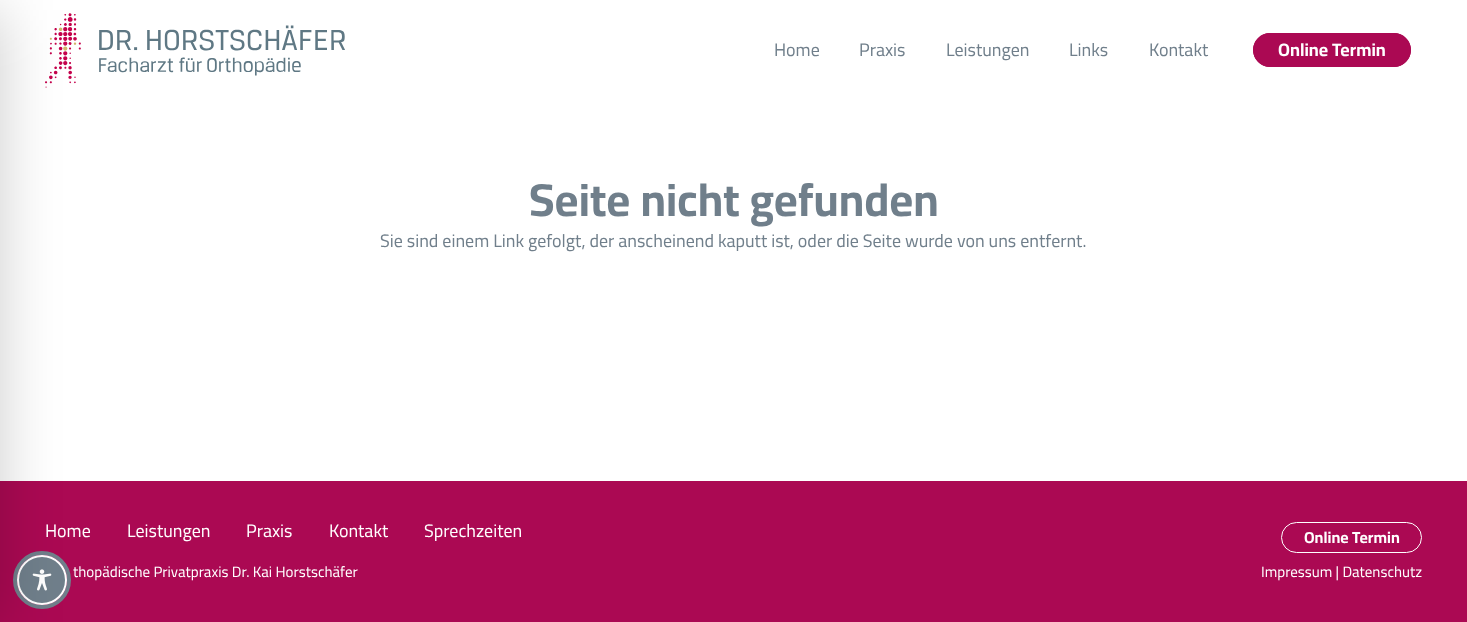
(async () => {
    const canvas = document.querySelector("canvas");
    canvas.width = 1467;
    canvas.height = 622;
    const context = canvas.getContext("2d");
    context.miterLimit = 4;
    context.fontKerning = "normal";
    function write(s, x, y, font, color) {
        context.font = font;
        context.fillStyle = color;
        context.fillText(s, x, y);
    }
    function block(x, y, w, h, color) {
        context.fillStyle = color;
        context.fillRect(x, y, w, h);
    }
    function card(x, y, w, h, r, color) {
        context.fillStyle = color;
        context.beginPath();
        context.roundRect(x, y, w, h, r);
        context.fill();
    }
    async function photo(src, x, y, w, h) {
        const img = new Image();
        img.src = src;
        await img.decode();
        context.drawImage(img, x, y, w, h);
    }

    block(0, 0, 1467, 622, "rgb(255, 255, 255)");
    await photo("media/1.png", 45, 13, 300, 75);
    block(0, 481, 1467, 141, "rgb(171, 9, 83)");
    context.beginPath();
    context.arc(42, 580, 27, 0, Math.PI * 2);
    context.strokeStyle = "rgb(112, 127, 139)";
    context.lineWidth = 4;
    context.stroke();
    context.fillStyle = "rgb(112, 127, 139)";
    context.beginPath();
    context.arc(42, 580, 24, 0, Math.PI * 2);
    context.fill();
    context.strokeStyle = "rgb(255, 255, 255)";
    context.lineWidth = 2;
    context.stroke();
    await photo("media/2.png", 32, 569, 20, 22);
    context.fillStyle = "rgba(0, 0, 0, 0.2)";
    context.filter = "blur(30px)";
    context.beginPath();
    context.rect(-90, 10, 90, 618);
    context.fill();
    context.filter = "none";
    write("Home", 774, 56, "18px Cairo", "rgb(112, 127, 139)");
    write("Praxis", 859, 56, "18px Cairo", "rgb(112, 127, 139)");
    write("Leistungen", 946, 56, "18px Cairo", "rgb(112, 127, 139)");
    write("Links", 1069, 56, "18px Cairo", "rgb(112, 127, 139)");
    write("Kontakt", 1149, 56, "18px Cairo", "rgb(112, 127, 139)");
    card(1253, 33, 158, 34, 17, "rgb(171, 9, 83)");
    context.beginPath();
    context.roundRect(1253.5, 33.5, 157, 33, 16.5);
    context.strokeStyle = "rgb(171, 9, 83)";
    context.lineWidth = 1;
    context.stroke();
    write("Online Termin", 1278, 56, "bold 18px Cairo", "rgb(255, 255, 255)");
    write("Seite nicht gefunden", 529, 216, "bold 46px Cairo", "rgb(112, 127, 139)");
    write("Sie sind einem Link gefolgt, der anscheinend kaputt ist, oder die Seite wurde von uns entfernt.", 380, 247, "18px Cairo", "rgb(112, 127, 139)");
    write("Home", 45, 537, "18px Cairo", "rgb(255, 255, 255)");
    write("Leistungen", 127, 537, "18px Cairo", "rgb(255, 255, 255)");
    write("Praxis", 246, 537, "18px Cairo", "rgb(255, 255, 255)");
    write("Kontakt", 329, 537, "18px Cairo", "rgb(255, 255, 255)");
    write("Sprechzeiten", 424, 537, "18px Cairo", "rgb(255, 255, 255)");
    context.beginPath();
    context.roundRect(1281.5, 522.5, 140, 30, 15);
    context.strokeStyle = "rgb(255, 255, 255)";
    context.stroke();
    write("Online Termin", 1304, 543, "bold 16px Cairo", "rgb(255, 255, 255)");
    write("thopädische Privatpraxis Dr. Kai Horstschäfer", 73, 577, "15px Cairo", "rgb(255, 255, 255)");
    write("Impressum | Datenschutz", 1261, 577, "15px Cairo", "rgb(255, 255, 255)");
})();
